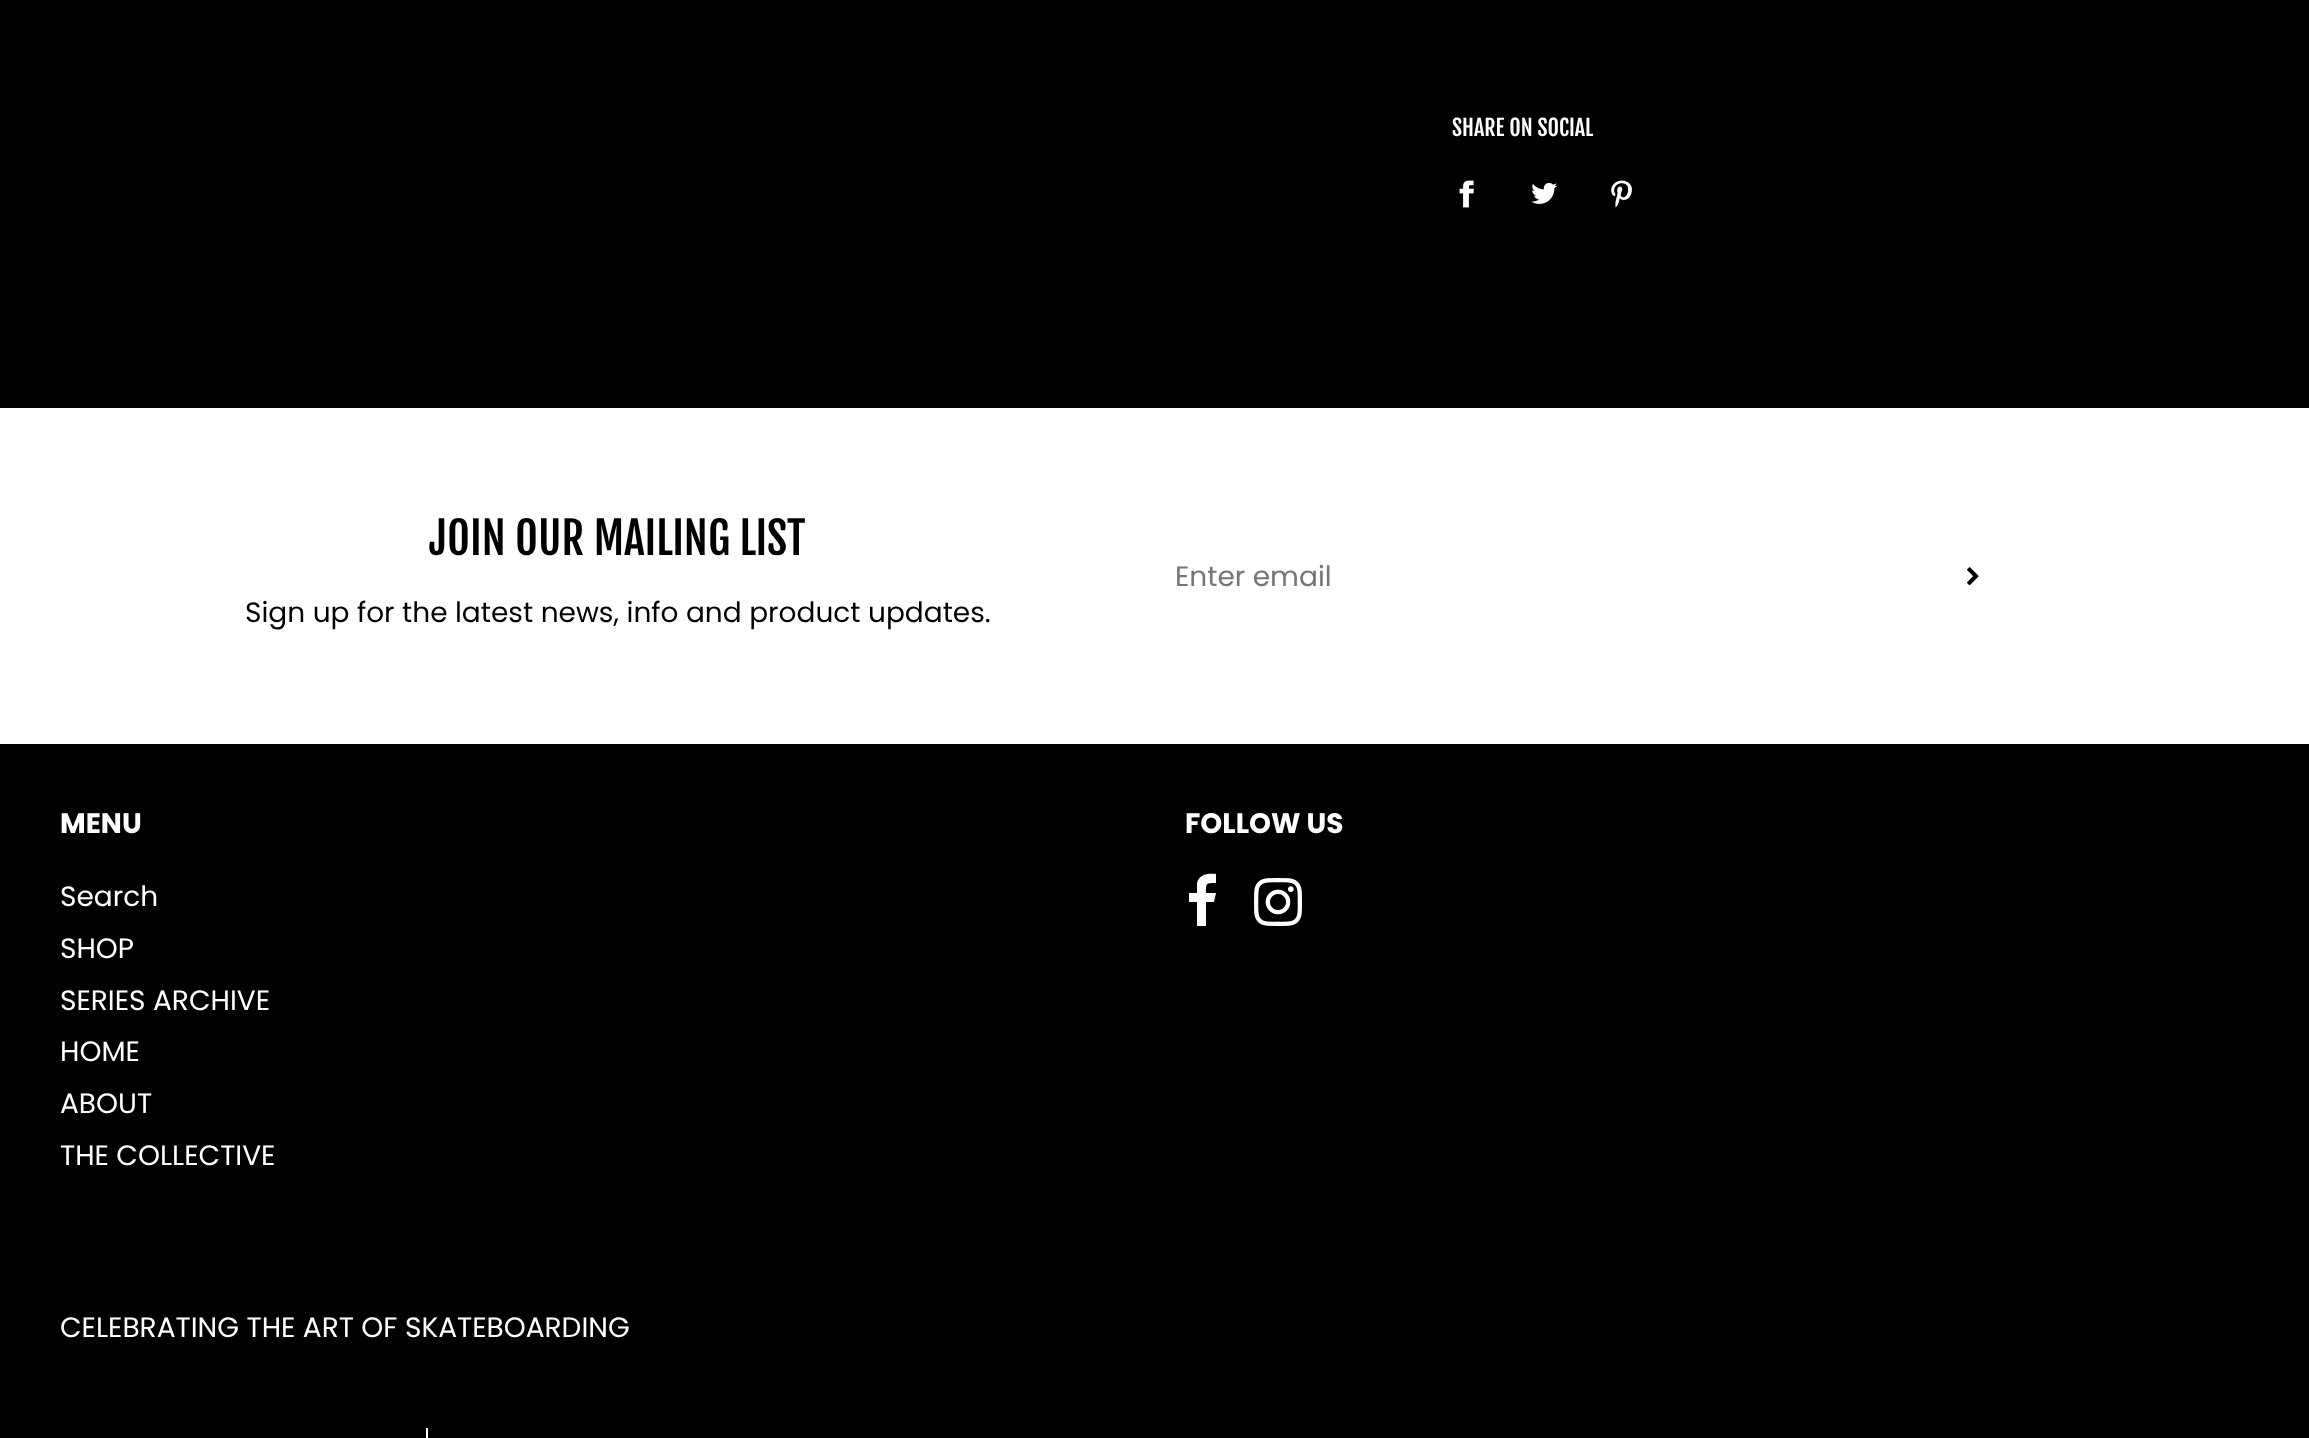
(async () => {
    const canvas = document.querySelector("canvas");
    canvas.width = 2309;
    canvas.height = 1438;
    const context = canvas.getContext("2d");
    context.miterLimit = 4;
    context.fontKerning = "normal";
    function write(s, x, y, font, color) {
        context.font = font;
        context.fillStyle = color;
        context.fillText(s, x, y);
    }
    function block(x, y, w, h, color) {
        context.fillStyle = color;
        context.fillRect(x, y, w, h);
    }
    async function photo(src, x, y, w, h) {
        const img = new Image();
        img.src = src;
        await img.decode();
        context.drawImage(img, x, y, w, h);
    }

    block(0, 0, 2309, 1438, "rgb(0, 0, 0)");
    write("SHARE ON SOCIAL", 1452, 136, "22px Fjalla One", "rgb(255, 255, 255)");
    await photo("media/1.png", 1459, 180, 15, 28);
    await photo("media/2.png", 1531, 182, 27, 22);
    await photo("media/3.png", 1611, 180, 21, 28);
    block(0, 408, 2309, 336, "rgb(255, 255, 255)");
    write("JOIN OUR MAILING LIST", 429, 555, "44px Fjalla One", "rgb(0, 0, 0)");
    write("Sign up for the latest news, info and product updates.", 245, 622, "28px Poppins", "rgb(0, 0, 0)");
    write("Enter email", 1175, 586, "28px Poppins", "rgb(117, 117, 117)");
    await photo("media/4.png", 1967, 567, 12, 19);
    write("MENU", 60, 833, "bold 28px Poppins", "rgb(255, 255, 255)");
    write("Search", 60, 906, "28px Poppins", "rgb(255, 255, 255)");
    write("SHOP", 60, 958, "28px Poppins", "rgb(255, 255, 255)");
    write("SERIES ARCHIVE", 60, 1010, "28px Poppins", "rgb(255, 255, 255)");
    write("HOME", 60, 1061, "28px Poppins", "rgb(255, 255, 255)");
    write("ABOUT", 60, 1113, "28px Poppins", "rgb(255, 255, 255)");
    write("THE COLLECTIVE", 60, 1165, "28px Poppins", "rgb(255, 255, 255)");
    write("FOLLOW US", 1185, 833, "bold 28px Poppins", "rgb(255, 255, 255)");
    context.beginPath();
    context.moveTo(1216, 874);
    context.lineTo(1216, 883);
    context.bezierCurveTo(1206, 883, 1206, 883, 1206, 893);
    context.lineTo(1216, 893);
    context.lineTo(1214, 902);
    context.lineTo(1206, 902);
    context.lineTo(1206, 926);
    context.lineTo(1197, 926);
    context.lineTo(1197, 902);
    context.lineTo(1189, 902);
    context.lineTo(1189, 893);
    context.lineTo(1197, 893);
    context.lineTo(1197, 883);
    context.bezierCurveTo(1199, 874, 1208, 873, 1216, 874);
    context.closePath();
    context.fill();
    await photo("media/5.png", 1254, 878, 48, 48);
    write("CELEBRATING THE ART OF SKATEBOARDING", 60, 1337, "28px Poppins", "rgb(255, 255, 255)");
    block(426, 1428, 2, 10, "rgb(255, 255, 255)");
})();
